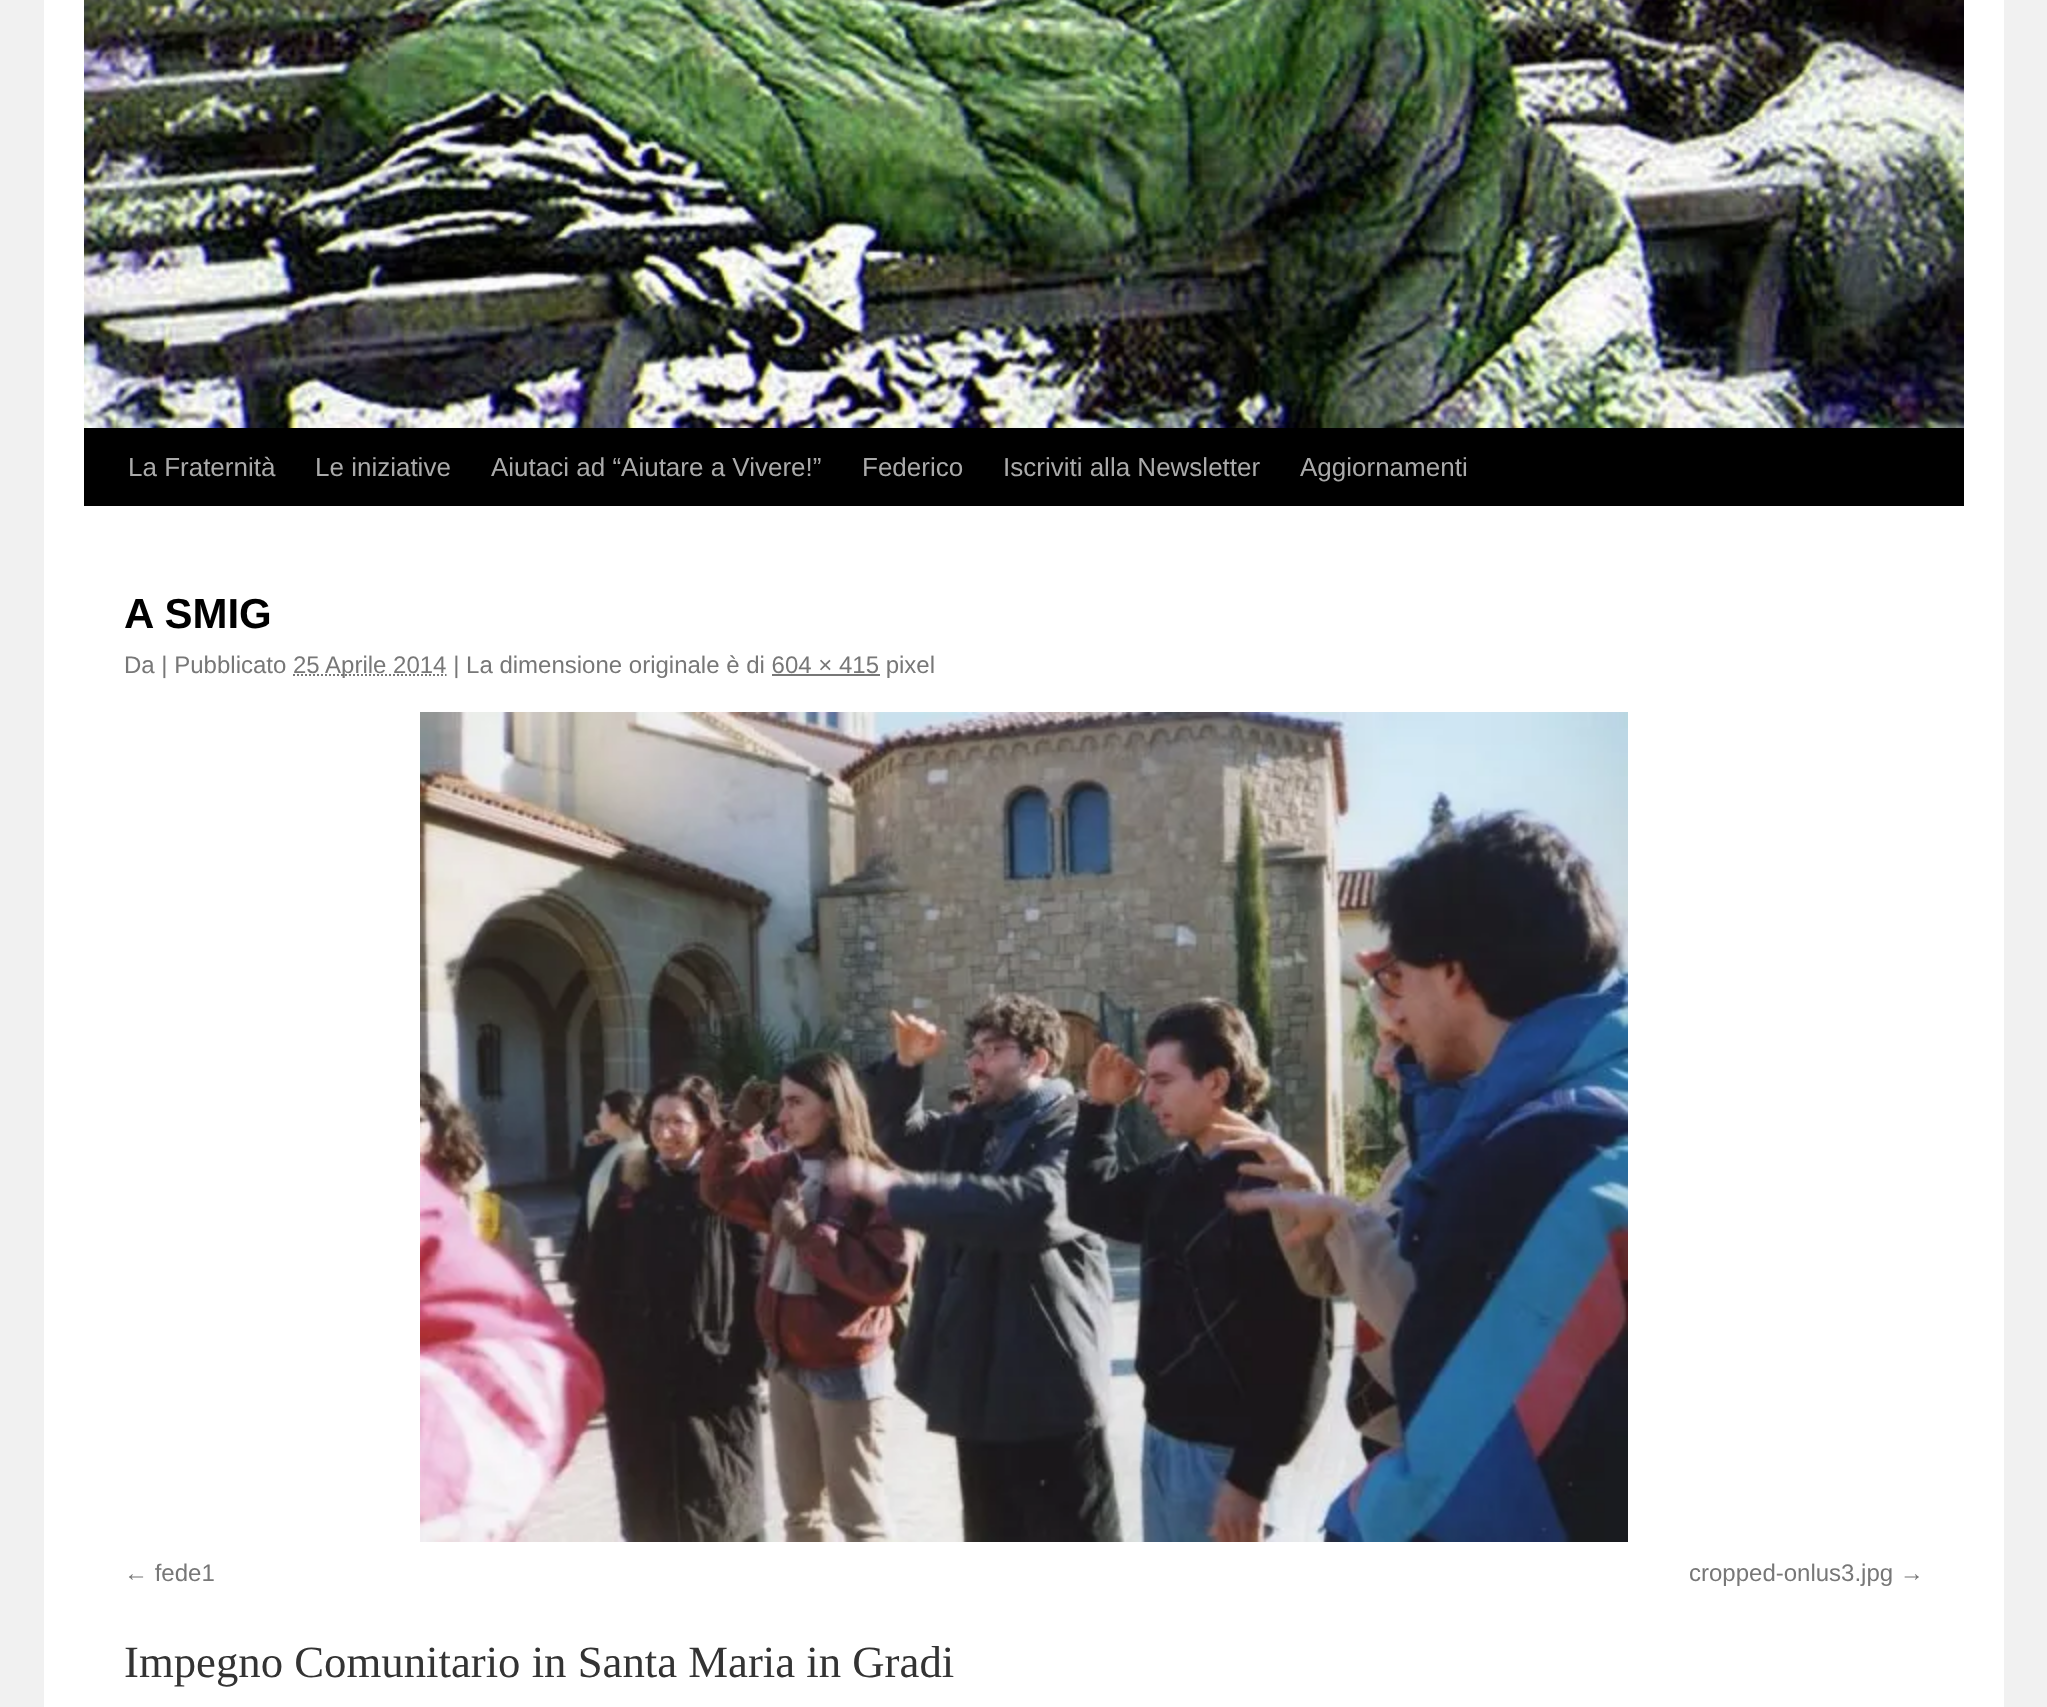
(async () => {
    const canvas = document.querySelector("canvas");
    canvas.width = 2047;
    canvas.height = 1707;
    const context = canvas.getContext("2d");
    context.miterLimit = 4;
    context.fontKerning = "normal";
    function write(s, x, y, font, color) {
        context.font = font;
        context.fillStyle = color;
        context.fillText(s, x, y);
    }
    function block(x, y, w, h, color) {
        context.fillStyle = color;
        context.fillRect(x, y, w, h);
    }
    async function photo(src, x, y, w, h) {
        const img = new Image();
        img.src = src;
        await img.decode();
        context.drawImage(img, x, y, w, h);
    }

    block(0, 0, 2047, 1707, "rgb(241, 241, 241)");
    block(44, 0, 1960, 1707, "rgb(255, 255, 255)");
    block(84, 428, 1880, 78, "rgb(0, 0, 0)");
    await photo("media/1.png", 84, 0, 1880, 428);
    write("La Fraternità", 128, 476, "26px Liberation Sans", "rgb(170, 170, 170)");
    write("Le iniziative", 315, 476, "26px Liberation Sans", "rgb(170, 170, 170)");
    write("Aiutaci ad “Aiutare a Vivere!”", 491, 476, "26px Liberation Sans", "rgb(170, 170, 170)");
    write("Federico", 862, 476, "26px Liberation Sans", "rgb(170, 170, 170)");
    write("Iscriviti alla Newsletter", 1003, 476, "26px Liberation Sans", "rgb(170, 170, 170)");
    write("Aggiornamenti", 1300, 476, "26px Liberation Sans", "rgb(170, 170, 170)");
    write("A SMIG", 124, 628, "bold 42px Liberation Sans", "rgb(0, 0, 0)");
    write("Da | Pubblicato", 124, 673, "24px Liberation Sans", "rgb(119, 119, 119)");
    context.beginPath();
    context.moveTo(293, 675);
    context.lineTo(446.5, 675);
    context.strokeStyle = "rgb(119, 119, 119)";
    context.lineWidth = 2;
    context.setLineDash([2, 2]);
    context.stroke();
    write("25 Aprile 2014 | La dimensione originale è di 604 × 415 pixel", 293, 673, "24px Liberation Sans", "rgb(119, 119, 119)");
    block(772, 674, 108, 2, "rgb(119, 119, 119)");
    await photo("media/2.png", 420, 712, 1208, 830);
    write("← fede1", 124, 1581, "24px Liberation Sans", "rgb(119, 119, 119)");
    write("cropped-onlus3.jpg →", 1689, 1581, "24px Liberation Sans", "rgb(119, 119, 119)");
    write("Impegno Comunitario in Santa Maria in Gradi", 124, 1677, "44.75px Liberation Serif", "rgb(51, 51, 51)");
})();
